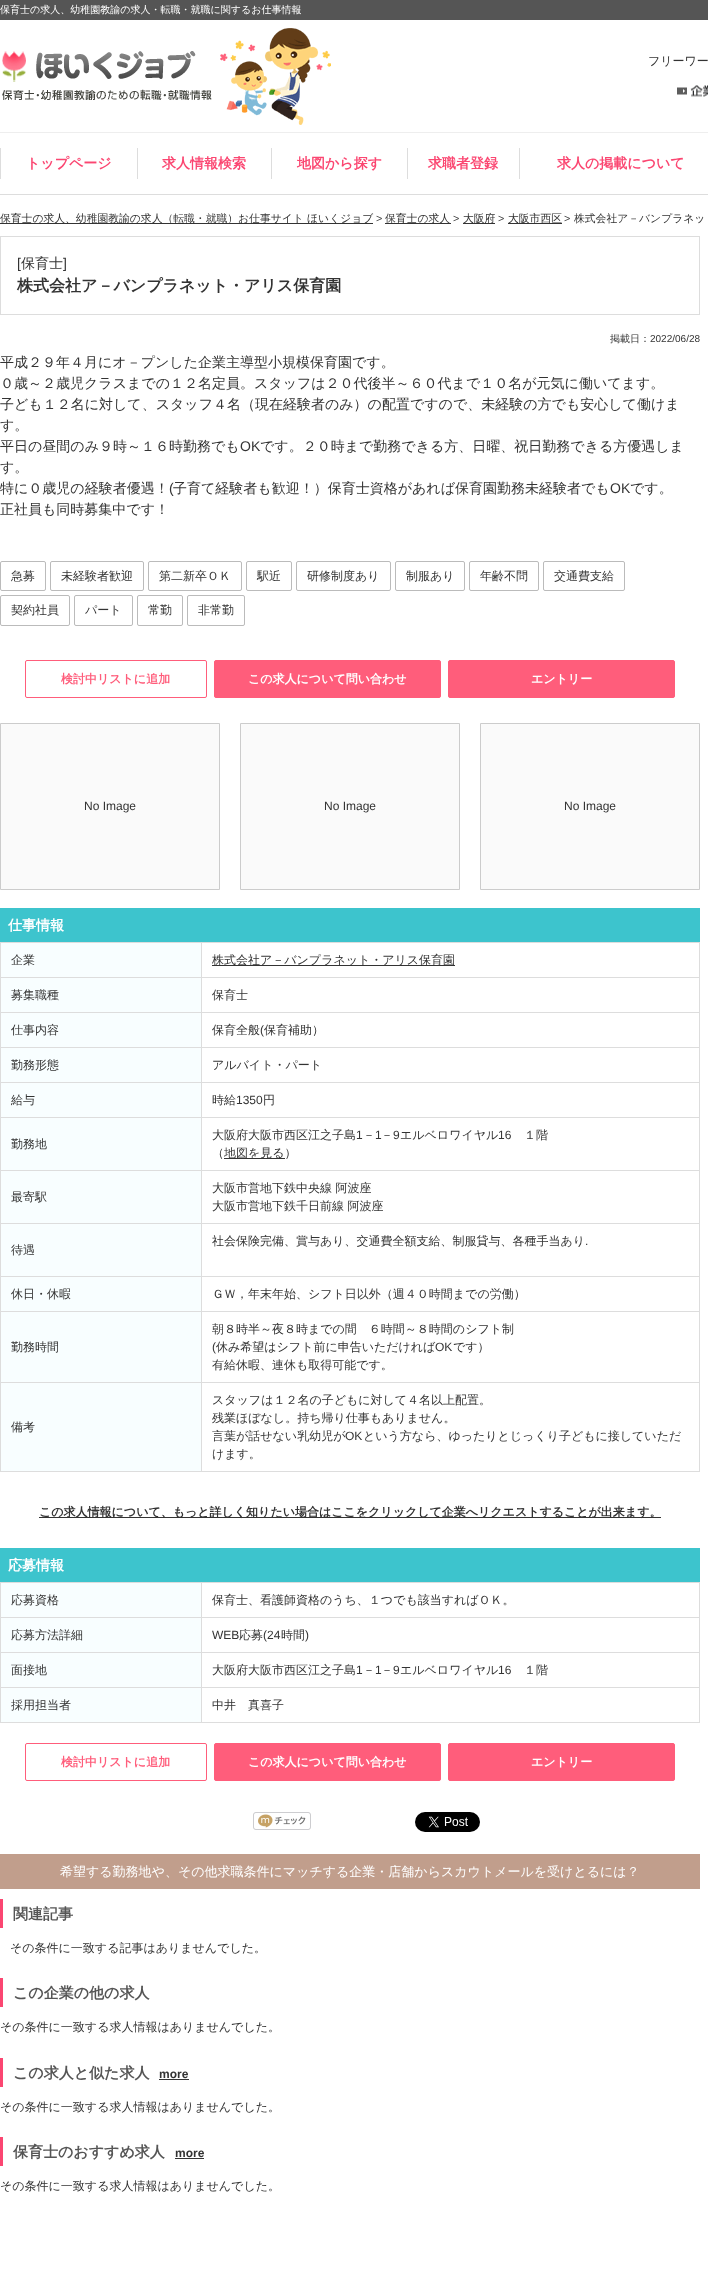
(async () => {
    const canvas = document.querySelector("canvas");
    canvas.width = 708;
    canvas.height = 2270;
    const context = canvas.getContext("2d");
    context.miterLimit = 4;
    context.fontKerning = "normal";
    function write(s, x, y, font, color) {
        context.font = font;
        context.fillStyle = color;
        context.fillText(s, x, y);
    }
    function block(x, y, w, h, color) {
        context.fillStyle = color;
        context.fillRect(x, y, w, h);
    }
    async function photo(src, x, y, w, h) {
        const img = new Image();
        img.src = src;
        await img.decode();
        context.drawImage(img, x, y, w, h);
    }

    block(0, 0, 708, 2270, "rgb(255, 255, 255)");
    block(0, 0, 708, 20, "rgb(85, 85, 85)");
    write("保育士の求人、幼稚園教諭の求人・転職・就職に関するお仕事情報", 0, 13, "500 10px WenQuanYi Zen Hei", "rgb(255, 255, 255)");
    await photo("media/1.png", 220, 28, 111, 97);
    await photo("media/2.png", 2, 51, 210, 49);
    write("フリーワー", 648, 65, "500 12px WenQuanYi Zen Hei", "rgb(51, 51, 51)");
    await photo("media/3.png", 677, 85, 31, 12);
    block(0, 132, 708, 1, "rgb(238, 238, 238)");
    block(0, 194, 708, 1, "rgb(221, 221, 221)");
    block(0, 148, 1, 31, "rgb(221, 221, 221)");
    block(137, 148, 1, 31, "rgb(221, 221, 221)");
    write("トップページ", 26, 168, "bold 14px WenQuanYi Zen Hei", "rgb(251, 70, 113)");
    block(271, 148, 1, 31, "rgb(221, 221, 221)");
    write("求人情報検索", 162, 168, "bold 14px WenQuanYi Zen Hei", "rgb(251, 70, 113)");
    block(407, 148, 1, 31, "rgb(221, 221, 221)");
    write("地図から探す", 297, 168, "bold 14px WenQuanYi Zen Hei", "rgb(251, 70, 113)");
    block(519, 148, 1, 31, "rgb(221, 221, 221)");
    write("求職者登録", 428, 168, "bold 14px WenQuanYi Zen Hei", "rgb(251, 70, 113)");
    write("求人の掲載について", 557, 168, "bold 14px WenQuanYi Zen Hei", "rgb(251, 70, 113)");
    block(0, 223, 373, 1, "rgb(51, 51, 51)");
    write("保育士の求人、幼稚園教諭の求人（転職・就職）お仕事サイト ほいくジョブ", 0, 222, "500 10.8px WenQuanYi Zen Hei", "rgb(51, 51, 51)");
    write(">", 376, 222, "10.8px Liberation Sans", "rgb(51, 51, 51)");
    block(385, 223, 66, 1, "rgb(51, 51, 51)");
    write("保育士の求人", 385, 222, "500 10.8px WenQuanYi Zen Hei", "rgb(51, 51, 51)");
    write(">", 453, 222, "10.8px Liberation Sans", "rgb(51, 51, 51)");
    block(463, 223, 32, 1, "rgb(51, 51, 51)");
    write("大阪府", 463, 222, "500 10.8px WenQuanYi Zen Hei", "rgb(51, 51, 51)");
    write(">", 498, 222, "10.8px Liberation Sans", "rgb(51, 51, 51)");
    block(508, 223, 54, 1, "rgb(51, 51, 51)");
    write("大阪市西区", 508, 222, "500 10.8px WenQuanYi Zen Hei", "rgb(51, 51, 51)");
    write(">", 564, 222, "10.8px Liberation Sans", "rgb(51, 51, 51)");
    write("株式会社ア－バンプラネッ", 574, 222, "500 10.8px WenQuanYi Zen Hei", "rgb(51, 51, 51)");
    context.strokeStyle = "rgb(221, 221, 221)";
    context.strokeRect(0.5, 236.5, 699, 78);
    write("[", 17, 268, "14px Liberation Sans", "rgb(51, 51, 51)");
    write("保育士", 21, 268, "500 14px WenQuanYi Zen Hei", "rgb(51, 51, 51)");
    write("]", 63, 268, "14px Liberation Sans", "rgb(51, 51, 51)");
    write("株式会社ア－バンプラネット・アリス保育園", 17, 291, "bold 16px WenQuanYi Zen Hei", "rgb(51, 51, 51)");
    write("掲載日：", 610, 342, "500 10px WenQuanYi Zen Hei", "rgb(51, 51, 51)");
    write("2022/06/28", 650, 342, "10px Liberation Sans", "rgb(51, 51, 51)");
    write("平成２９年４月にオ－プンした企業主導型小規模保育園です。", 0, 367, "500 14px WenQuanYi Zen Hei", "rgb(51, 51, 51)");
    write("０歳～２歳児クラスまでの１２名定員。スタッフは２０代後半～６０代まで１０名が元気に働いてます。", 0, 388, "500 14px WenQuanYi Zen Hei", "rgb(51, 51, 51)");
    write("子ども１２名に対して、スタッフ４名（現在経験者のみ）の配置ですので、未経験の方でも安心して働けま", 0, 409, "500 14px WenQuanYi Zen Hei", "rgb(51, 51, 51)");
    write("す。", 0, 430, "500 14px WenQuanYi Zen Hei", "rgb(51, 51, 51)");
    write("平日の昼間のみ９時～１６時勤務でも", 0, 451, "500 14px WenQuanYi Zen Hei", "rgb(51, 51, 51)");
    write("OK", 240, 451, "14px Liberation Sans", "rgb(51, 51, 51)");
    write("です。２０時まで勤務できる方、日曜、祝日勤務できる方優遇しま", 260, 451, "500 14px WenQuanYi Zen Hei", "rgb(51, 51, 51)");
    write("す。", 0, 472, "500 14px WenQuanYi Zen Hei", "rgb(51, 51, 51)");
    write("特に０歳児の経験者優遇！", 0, 493, "500 14px WenQuanYi Zen Hei", "rgb(51, 51, 51)");
    write("(", 169, 493, "14px Liberation Sans", "rgb(51, 51, 51)");
    write("子育て経験者も歓迎！）保育士資格があれば保育園勤務未経験者でも", 173, 493, "500 14px WenQuanYi Zen Hei", "rgb(51, 51, 51)");
    write("OK", 610, 493, "14px Liberation Sans", "rgb(51, 51, 51)");
    write("です。", 630, 493, "500 14px WenQuanYi Zen Hei", "rgb(51, 51, 51)");
    write("正社員も同時募集中です！", 0, 514, "500 14px WenQuanYi Zen Hei", "rgb(51, 51, 51)");
    context.beginPath();
    context.roundRect(0.5, 561.5, 45, 29, 1.5);
    context.strokeStyle = "rgb(187, 187, 187)";
    context.stroke();
    write("急募", 11, 580, "500 12px WenQuanYi Zen Hei", "rgb(51, 51, 51)");
    context.beginPath();
    context.roundRect(50.5, 561.5, 93, 29, 1.5);
    context.stroke();
    write("未経験者歓迎", 61, 580, "500 12px WenQuanYi Zen Hei", "rgb(51, 51, 51)");
    context.beginPath();
    context.roundRect(148.5, 561.5, 93, 29, 1.5);
    context.stroke();
    write("第二新卒ＯＫ", 159, 580, "500 12px WenQuanYi Zen Hei", "rgb(51, 51, 51)");
    context.beginPath();
    context.roundRect(246.5, 561.5, 45, 29, 1.5);
    context.stroke();
    write("駅近", 257, 580, "500 12px WenQuanYi Zen Hei", "rgb(51, 51, 51)");
    context.beginPath();
    context.roundRect(296.5, 561.5, 94, 29, 1.5);
    context.stroke();
    write("研修制度あり", 307, 580, "500 12px WenQuanYi Zen Hei", "rgb(51, 51, 51)");
    context.beginPath();
    context.roundRect(395.5, 561.5, 69, 29, 1.5);
    context.stroke();
    write("制服あり", 406, 580, "500 12px WenQuanYi Zen Hei", "rgb(51, 51, 51)");
    context.beginPath();
    context.roundRect(469.5, 561.5, 69, 29, 1.5);
    context.stroke();
    write("年齢不問", 480, 580, "500 12px WenQuanYi Zen Hei", "rgb(51, 51, 51)");
    context.beginPath();
    context.roundRect(543.5, 561.5, 81, 29, 1.5);
    context.stroke();
    write("交通費支給", 554, 580, "500 12px WenQuanYi Zen Hei", "rgb(51, 51, 51)");
    context.beginPath();
    context.roundRect(0.5, 595.5, 69, 30, 1.5);
    context.stroke();
    write("契約社員", 11, 614, "500 12px WenQuanYi Zen Hei", "rgb(51, 51, 51)");
    context.beginPath();
    context.roundRect(74.5, 595.5, 58, 30, 1.5);
    context.stroke();
    write("パート", 85, 614, "500 12px WenQuanYi Zen Hei", "rgb(51, 51, 51)");
    context.beginPath();
    context.roundRect(137.5, 595.5, 45, 30, 1.5);
    context.stroke();
    write("常勤", 148, 614, "500 12px WenQuanYi Zen Hei", "rgb(51, 51, 51)");
    context.beginPath();
    context.roundRect(187.5, 595.5, 57, 30, 1.5);
    context.stroke();
    write("非常勤", 198, 614, "500 12px WenQuanYi Zen Hei", "rgb(51, 51, 51)");
    context.beginPath();
    context.roundRect(25.5, 660.5, 181, 37, 1.5);
    context.strokeStyle = "rgb(255, 93, 123)";
    context.stroke();
    write("検討中リストに追加", 61, 683, "bold 12px WenQuanYi Zen Hei", "rgb(255, 93, 123)");
    context.beginPath();
    context.roundRect(214.5, 660.5, 226, 37, 1.5);
    context.fill();
    context.stroke();
    write("この求人について問い合わせ", 248, 683, "bold 12px WenQuanYi Zen Hei", "rgb(255, 255, 255)");
    context.fillStyle = "rgb(255, 93, 123)";
    context.beginPath();
    context.roundRect(448.5, 660.5, 226, 37, 1.5);
    context.fill();
    context.stroke();
    write("エントリー", 531, 683, "bold 12px WenQuanYi Zen Hei", "rgb(255, 255, 255)");
    context.fillStyle = "rgb(250, 250, 250)";
    context.beginPath();
    context.rect(0.5, 723.5, 219, 166);
    context.fill();
    context.strokeStyle = "rgb(204, 204, 204)";
    context.stroke();
    write("No Image", 84, 810, "12px Liberation Sans", "rgb(51, 51, 51)");
    context.fillStyle = "rgb(250, 250, 250)";
    context.beginPath();
    context.rect(240.5, 723.5, 219, 166);
    context.fill();
    context.stroke();
    write("No Image", 324, 810, "12px Liberation Sans", "rgb(51, 51, 51)");
    context.fillStyle = "rgb(250, 250, 250)";
    context.beginPath();
    context.rect(480.5, 723.5, 219, 166);
    context.fill();
    context.stroke();
    write("No Image", 564, 810, "12px Liberation Sans", "rgb(51, 51, 51)");
    block(0, 908, 700, 34, "rgb(61, 196, 205)");
    write("仕事情報", 8, 930, "bold 14px WenQuanYi Zen Hei", "rgb(255, 255, 255)");
    block(1, 943, 200, 34, "rgb(248, 254, 255)");
    block(201, 942, 499, 1, "rgb(221, 221, 221)");
    block(201, 977, 499, 1, "rgb(221, 221, 221)");
    block(201, 1012, 499, 1, "rgb(221, 221, 221)");
    block(201, 1047, 499, 1, "rgb(221, 221, 221)");
    block(201, 1082, 499, 1, "rgb(221, 221, 221)");
    block(201, 1117, 499, 1, "rgb(221, 221, 221)");
    block(201, 1170, 499, 1, "rgb(221, 221, 221)");
    block(201, 1223, 499, 1, "rgb(221, 221, 221)");
    block(201, 1276, 499, 1, "rgb(221, 221, 221)");
    block(201, 1311, 499, 1, "rgb(221, 221, 221)");
    block(201, 1382, 499, 1, "rgb(221, 221, 221)");
    block(699, 1382, 1, 90, "rgb(221, 221, 221)");
    block(201, 1471, 499, 1, "rgb(221, 221, 221)");
    block(201, 1382, 1, 90, "rgb(221, 221, 221)");
    block(0, 1382, 202, 1, "rgb(221, 221, 221)");
    block(201, 1311, 1, 72, "rgb(221, 221, 221)");
    block(0, 1311, 202, 1, "rgb(221, 221, 221)");
    block(201, 1276, 1, 36, "rgb(221, 221, 221)");
    block(0, 1276, 202, 1, "rgb(221, 221, 221)");
    block(201, 1223, 1, 54, "rgb(221, 221, 221)");
    block(0, 1223, 202, 1, "rgb(221, 221, 221)");
    block(201, 1170, 1, 54, "rgb(221, 221, 221)");
    block(0, 1170, 202, 1, "rgb(221, 221, 221)");
    block(201, 1117, 1, 54, "rgb(221, 221, 221)");
    block(0, 1117, 202, 1, "rgb(221, 221, 221)");
    block(201, 1082, 1, 36, "rgb(221, 221, 221)");
    block(0, 1082, 202, 1, "rgb(221, 221, 221)");
    block(201, 1047, 1, 36, "rgb(221, 221, 221)");
    block(0, 1047, 202, 1, "rgb(221, 221, 221)");
    block(201, 1012, 1, 36, "rgb(221, 221, 221)");
    block(0, 1012, 202, 1, "rgb(221, 221, 221)");
    block(201, 977, 1, 36, "rgb(221, 221, 221)");
    block(0, 977, 202, 1, "rgb(221, 221, 221)");
    block(201, 942, 1, 36, "rgb(221, 221, 221)");
    block(0, 942, 202, 1, "rgb(221, 221, 221)");
    block(0, 1471, 202, 1, "rgb(221, 221, 221)");
    block(0, 1382, 1, 90, "rgb(221, 221, 221)");
    block(0, 1311, 1, 72, "rgb(221, 221, 221)");
    block(0, 1276, 1, 36, "rgb(221, 221, 221)");
    block(0, 1223, 1, 54, "rgb(221, 221, 221)");
    block(0, 1170, 1, 54, "rgb(221, 221, 221)");
    block(0, 1117, 1, 54, "rgb(221, 221, 221)");
    block(0, 1082, 1, 36, "rgb(221, 221, 221)");
    block(0, 1047, 1, 36, "rgb(221, 221, 221)");
    block(0, 1012, 1, 36, "rgb(221, 221, 221)");
    block(0, 977, 1, 36, "rgb(221, 221, 221)");
    block(0, 942, 1, 36, "rgb(221, 221, 221)");
    write("企業", 11, 964, "500 12px WenQuanYi Zen Hei", "rgb(51, 51, 51)");
    block(699, 1311, 1, 72, "rgb(221, 221, 221)");
    block(699, 1276, 1, 36, "rgb(221, 221, 221)");
    block(699, 1223, 1, 54, "rgb(221, 221, 221)");
    block(699, 1170, 1, 54, "rgb(221, 221, 221)");
    block(699, 1117, 1, 54, "rgb(221, 221, 221)");
    block(699, 1082, 1, 36, "rgb(221, 221, 221)");
    block(699, 1047, 1, 36, "rgb(221, 221, 221)");
    block(699, 1012, 1, 36, "rgb(221, 221, 221)");
    block(699, 977, 1, 36, "rgb(221, 221, 221)");
    block(699, 942, 1, 36, "rgb(221, 221, 221)");
    block(212, 965, 243, 1, "rgb(51, 51, 51)");
    write("株式会社ア－バンプラネット・アリス保育園", 212, 964, "500 12px WenQuanYi Zen Hei", "rgb(51, 51, 51)");
    block(1, 978, 200, 34, "rgb(248, 254, 255)");
    write("募集職種", 11, 999, "500 12px WenQuanYi Zen Hei", "rgb(51, 51, 51)");
    write("保育士", 212, 999, "500 12px WenQuanYi Zen Hei", "rgb(51, 51, 51)");
    block(1, 1013, 200, 34, "rgb(248, 254, 255)");
    write("仕事内容", 11, 1034, "500 12px WenQuanYi Zen Hei", "rgb(51, 51, 51)");
    write("保育全般", 212, 1034, "500 12px WenQuanYi Zen Hei", "rgb(51, 51, 51)");
    write("(", 260, 1034, "12px Liberation Sans", "rgb(51, 51, 51)");
    write("保育補助）", 264, 1034, "500 12px WenQuanYi Zen Hei", "rgb(51, 51, 51)");
    block(1, 1048, 200, 34, "rgb(248, 254, 255)");
    write("勤務形態", 11, 1069, "500 12px WenQuanYi Zen Hei", "rgb(51, 51, 51)");
    write("アルバイト・パート", 212, 1069, "500 12px WenQuanYi Zen Hei", "rgb(51, 51, 51)");
    block(1, 1083, 200, 34, "rgb(248, 254, 255)");
    write("給与", 11, 1104, "500 12px WenQuanYi Zen Hei", "rgb(51, 51, 51)");
    write("時給", 212, 1104, "500 12px WenQuanYi Zen Hei", "rgb(51, 51, 51)");
    write("1350", 236, 1104, "12px Liberation Sans", "rgb(51, 51, 51)");
    write("円", 263, 1104, "500 12px WenQuanYi Zen Hei", "rgb(51, 51, 51)");
    block(1, 1118, 200, 52, "rgb(248, 254, 255)");
    write("勤務地", 11, 1148, "500 12px WenQuanYi Zen Hei", "rgb(51, 51, 51)");
    write("大阪府大阪市西区江之子島", 212, 1139, "500 12px WenQuanYi Zen Hei", "rgb(51, 51, 51)");
    write("1", 356, 1139, "12px Liberation Sans", "rgb(51, 51, 51)");
    write("－", 363, 1139, "500 12px WenQuanYi Zen Hei", "rgb(51, 51, 51)");
    write("1", 375, 1139, "12px Liberation Sans", "rgb(51, 51, 51)");
    write("－", 381, 1139, "500 12px WenQuanYi Zen Hei", "rgb(51, 51, 51)");
    write("9", 393, 1139, "12px Liberation Sans", "rgb(51, 51, 51)");
    write("エルベロワイヤル", 400, 1139, "500 12px WenQuanYi Zen Hei", "rgb(51, 51, 51)");
    write("16", 498, 1139, "12px Liberation Sans", "rgb(51, 51, 51)");
    write("１階", 524, 1139, "500 12px WenQuanYi Zen Hei", "rgb(51, 51, 51)");
    write("（", 212, 1157, "500 12px WenQuanYi Zen Hei", "rgb(51, 51, 51)");
    block(224, 1158, 61, 1, "rgb(51, 51, 51)");
    write("地図を見る）", 224, 1157, "500 12px WenQuanYi Zen Hei", "rgb(51, 51, 51)");
    block(1, 1171, 200, 52, "rgb(248, 254, 255)");
    write("最寄駅", 11, 1201, "500 12px WenQuanYi Zen Hei", "rgb(51, 51, 51)");
    write("大阪市営地下鉄中央線 阿波座", 212, 1192, "500 12px WenQuanYi Zen Hei", "rgb(51, 51, 51)");
    write("大阪市営地下鉄千日前線 阿波座", 212, 1210, "500 12px WenQuanYi Zen Hei", "rgb(51, 51, 51)");
    write("社会保険完備、賞与あり、交通費全額支給、制服貸与、各種手当あり", 212, 1245, "500 12px WenQuanYi Zen Hei", "rgb(51, 51, 51)");
    write(".", 585, 1245, "12px Liberation Sans", "rgb(51, 51, 51)");
    block(1, 1224, 200, 52, "rgb(248, 254, 255)");
    write("待遇", 11, 1254, "500 12px WenQuanYi Zen Hei", "rgb(51, 51, 51)");
    block(1, 1277, 200, 34, "rgb(248, 254, 255)");
    write("休日・休暇", 11, 1298, "500 12px WenQuanYi Zen Hei", "rgb(51, 51, 51)");
    write("ＧＷ，年末年始、シフト日以外（週４０時間までの労働）", 212, 1298, "500 12px WenQuanYi Zen Hei", "rgb(51, 51, 51)");
    block(1, 1312, 200, 70, "rgb(248, 254, 255)");
    write("勤務時間", 11, 1351, "500 12px WenQuanYi Zen Hei", "rgb(51, 51, 51)");
    write("朝８時半～夜８時までの間　６時間～８時間のシフト制", 212, 1333, "500 12px WenQuanYi Zen Hei", "rgb(51, 51, 51)");
    write("(", 212, 1351, "12px Liberation Sans", "rgb(51, 51, 51)");
    write("休み希望はシフト前に申告いただければ", 216, 1351, "500 12px WenQuanYi Zen Hei", "rgb(51, 51, 51)");
    write("OK", 435, 1351, "12px Liberation Sans", "rgb(51, 51, 51)");
    write("です）", 453, 1351, "500 12px WenQuanYi Zen Hei", "rgb(51, 51, 51)");
    write("有給休暇、連休も取得可能です。", 212, 1369, "500 12px WenQuanYi Zen Hei", "rgb(51, 51, 51)");
    block(1, 1383, 200, 88, "rgb(248, 254, 255)");
    write("備考", 11, 1431, "500 12px WenQuanYi Zen Hei", "rgb(51, 51, 51)");
    write("スタッフは１２名の子どもに対して４名以上配置。", 212, 1404, "500 12px WenQuanYi Zen Hei", "rgb(51, 51, 51)");
    write("残業ほぼなし。持ち帰り仕事もありません。", 212, 1422, "500 12px WenQuanYi Zen Hei", "rgb(51, 51, 51)");
    write("言葉が話せない乳幼児が", 212, 1440, "500 12px WenQuanYi Zen Hei", "rgb(51, 51, 51)");
    write("OK", 345, 1440, "12px Liberation Sans", "rgb(51, 51, 51)");
    write("という方なら、ゆったりとじっくり子どもに接していただ", 363, 1440, "500 12px WenQuanYi Zen Hei", "rgb(51, 51, 51)");
    write("けます。", 212, 1458, "500 12px WenQuanYi Zen Hei", "rgb(51, 51, 51)");
    block(39, 1517, 622, 1, "rgb(51, 51, 51)");
    write("この求人情報について、もっと詳しく知りたい場合はここをクリックして企業へリクエストすることが出来ます。", 39, 1516, "bold 12px WenQuanYi Zen Hei", "rgb(51, 51, 51)");
    block(0, 1548, 700, 34, "rgb(61, 196, 205)");
    write("応募情報", 8, 1570, "bold 14px WenQuanYi Zen Hei", "rgb(255, 255, 255)");
    block(1, 1583, 200, 34, "rgb(248, 254, 255)");
    block(201, 1582, 499, 1, "rgb(221, 221, 221)");
    block(201, 1617, 499, 1, "rgb(221, 221, 221)");
    block(201, 1652, 499, 1, "rgb(221, 221, 221)");
    block(201, 1687, 499, 1, "rgb(221, 221, 221)");
    block(699, 1687, 1, 36, "rgb(221, 221, 221)");
    block(201, 1722, 499, 1, "rgb(221, 221, 221)");
    block(201, 1687, 1, 36, "rgb(221, 221, 221)");
    block(0, 1687, 202, 1, "rgb(221, 221, 221)");
    block(201, 1652, 1, 36, "rgb(221, 221, 221)");
    block(0, 1652, 202, 1, "rgb(221, 221, 221)");
    block(201, 1617, 1, 36, "rgb(221, 221, 221)");
    block(0, 1617, 202, 1, "rgb(221, 221, 221)");
    block(201, 1582, 1, 36, "rgb(221, 221, 221)");
    block(0, 1582, 202, 1, "rgb(221, 221, 221)");
    block(0, 1722, 202, 1, "rgb(221, 221, 221)");
    block(0, 1687, 1, 36, "rgb(221, 221, 221)");
    block(0, 1652, 1, 36, "rgb(221, 221, 221)");
    block(0, 1617, 1, 36, "rgb(221, 221, 221)");
    block(0, 1582, 1, 36, "rgb(221, 221, 221)");
    write("応募資格", 11, 1604, "500 12px WenQuanYi Zen Hei", "rgb(51, 51, 51)");
    block(699, 1652, 1, 36, "rgb(221, 221, 221)");
    block(699, 1617, 1, 36, "rgb(221, 221, 221)");
    block(699, 1582, 1, 36, "rgb(221, 221, 221)");
    write("保育士、看護師資格のうち、１つでも該当すればＯＫ。", 212, 1604, "500 12px WenQuanYi Zen Hei", "rgb(51, 51, 51)");
    block(1, 1618, 200, 34, "rgb(248, 254, 255)");
    write("応募方法詳細", 11, 1639, "500 12px WenQuanYi Zen Hei", "rgb(51, 51, 51)");
    write("WEB", 212, 1639, "12px Liberation Sans", "rgb(51, 51, 51)");
    write("応募", 239, 1639, "500 12px WenQuanYi Zen Hei", "rgb(51, 51, 51)");
    write("(24", 263, 1639, "12px Liberation Sans", "rgb(51, 51, 51)");
    write("時間", 281, 1639, "500 12px WenQuanYi Zen Hei", "rgb(51, 51, 51)");
    write(")", 305, 1639, "12px Liberation Sans", "rgb(51, 51, 51)");
    block(1, 1653, 200, 34, "rgb(248, 254, 255)");
    write("面接地", 11, 1674, "500 12px WenQuanYi Zen Hei", "rgb(51, 51, 51)");
    write("大阪府大阪市西区江之子島", 212, 1674, "500 12px WenQuanYi Zen Hei", "rgb(51, 51, 51)");
    write("1", 356, 1674, "12px Liberation Sans", "rgb(51, 51, 51)");
    write("－", 363, 1674, "500 12px WenQuanYi Zen Hei", "rgb(51, 51, 51)");
    write("1", 375, 1674, "12px Liberation Sans", "rgb(51, 51, 51)");
    write("－", 381, 1674, "500 12px WenQuanYi Zen Hei", "rgb(51, 51, 51)");
    write("9", 393, 1674, "12px Liberation Sans", "rgb(51, 51, 51)");
    write("エルベロワイヤル", 400, 1674, "500 12px WenQuanYi Zen Hei", "rgb(51, 51, 51)");
    write("16", 498, 1674, "12px Liberation Sans", "rgb(51, 51, 51)");
    write("１階", 524, 1674, "500 12px WenQuanYi Zen Hei", "rgb(51, 51, 51)");
    block(1, 1688, 200, 34, "rgb(248, 254, 255)");
    write("採用担当者", 11, 1709, "500 12px WenQuanYi Zen Hei", "rgb(51, 51, 51)");
    write("中井　真喜子", 212, 1709, "500 12px WenQuanYi Zen Hei", "rgb(51, 51, 51)");
    context.beginPath();
    context.roundRect(25.5, 1743.5, 181, 37, 1.5);
    context.strokeStyle = "rgb(255, 93, 123)";
    context.stroke();
    write("検討中リストに追加", 61, 1766, "bold 12px WenQuanYi Zen Hei", "rgb(255, 93, 123)");
    context.beginPath();
    context.roundRect(214.5, 1743.5, 226, 37, 1.5);
    context.fill();
    context.stroke();
    write("この求人について問い合わせ", 248, 1766, "bold 12px WenQuanYi Zen Hei", "rgb(255, 255, 255)");
    context.fillStyle = "rgb(255, 93, 123)";
    context.beginPath();
    context.roundRect(448.5, 1743.5, 226, 37, 1.5);
    context.fill();
    context.stroke();
    write("エントリー", 531, 1766, "bold 12px WenQuanYi Zen Hei", "rgb(255, 255, 255)");
    await photo("media/4.png", 253, 1812, 58, 18);
    await photo("media/5.png", 415, 1812, 65, 20);
    block(0, 1854, 700, 35, "rgb(193, 158, 140)");
    write("希望する勤務地や、その他求職条件にマッチする企業・店舗からスカウトメールを受けとるには？", 60, 1876, "500 13px WenQuanYi Zen Hei", "rgb(255, 255, 255)");
    block(0, 1899, 3, 29, "rgb(251, 70, 113)");
    write("関連記事", 13, 1919, "bold 15px WenQuanYi Zen Hei", "rgb(85, 85, 85)");
    write("その条件に一致する記事はありませんでした。", 10, 1952, "500 12px WenQuanYi Zen Hei", "rgb(51, 51, 51)");
    block(0, 1978, 3, 29, "rgb(251, 70, 113)");
    write("この企業の他の求人", 13, 1998, "bold 15px WenQuanYi Zen Hei", "rgb(85, 85, 85)");
    write("その条件に一致する求人情報はありませんでした。", 0, 2031, "500 12px WenQuanYi Zen Hei", "rgb(51, 51, 51)");
    block(0, 2058, 3, 29, "rgb(251, 70, 113)");
    write("この求人と似た求人", 13, 2078, "bold 15px WenQuanYi Zen Hei", "rgb(85, 85, 85)");
    write("more", 159, 2078, "bold 12px Liberation Sans", "rgb(51, 51, 51)");
    block(159, 2079, 30, 1, "rgb(51, 51, 51)");
    write("その条件に一致する求人情報はありませんでした。", 0, 2111, "500 12px WenQuanYi Zen Hei", "rgb(51, 51, 51)");
    block(0, 2137, 3, 29, "rgb(251, 70, 113)");
    write("保育士のおすすめ求人", 13, 2157, "bold 15px WenQuanYi Zen Hei", "rgb(85, 85, 85)");
    write("more", 175, 2157, "bold 12px Liberation Sans", "rgb(51, 51, 51)");
    block(175, 2158, 29, 1, "rgb(51, 51, 51)");
    write("その条件に一致する求人情報はありませんでした。", 0, 2190, "500 12px WenQuanYi Zen Hei", "rgb(51, 51, 51)");
})();
